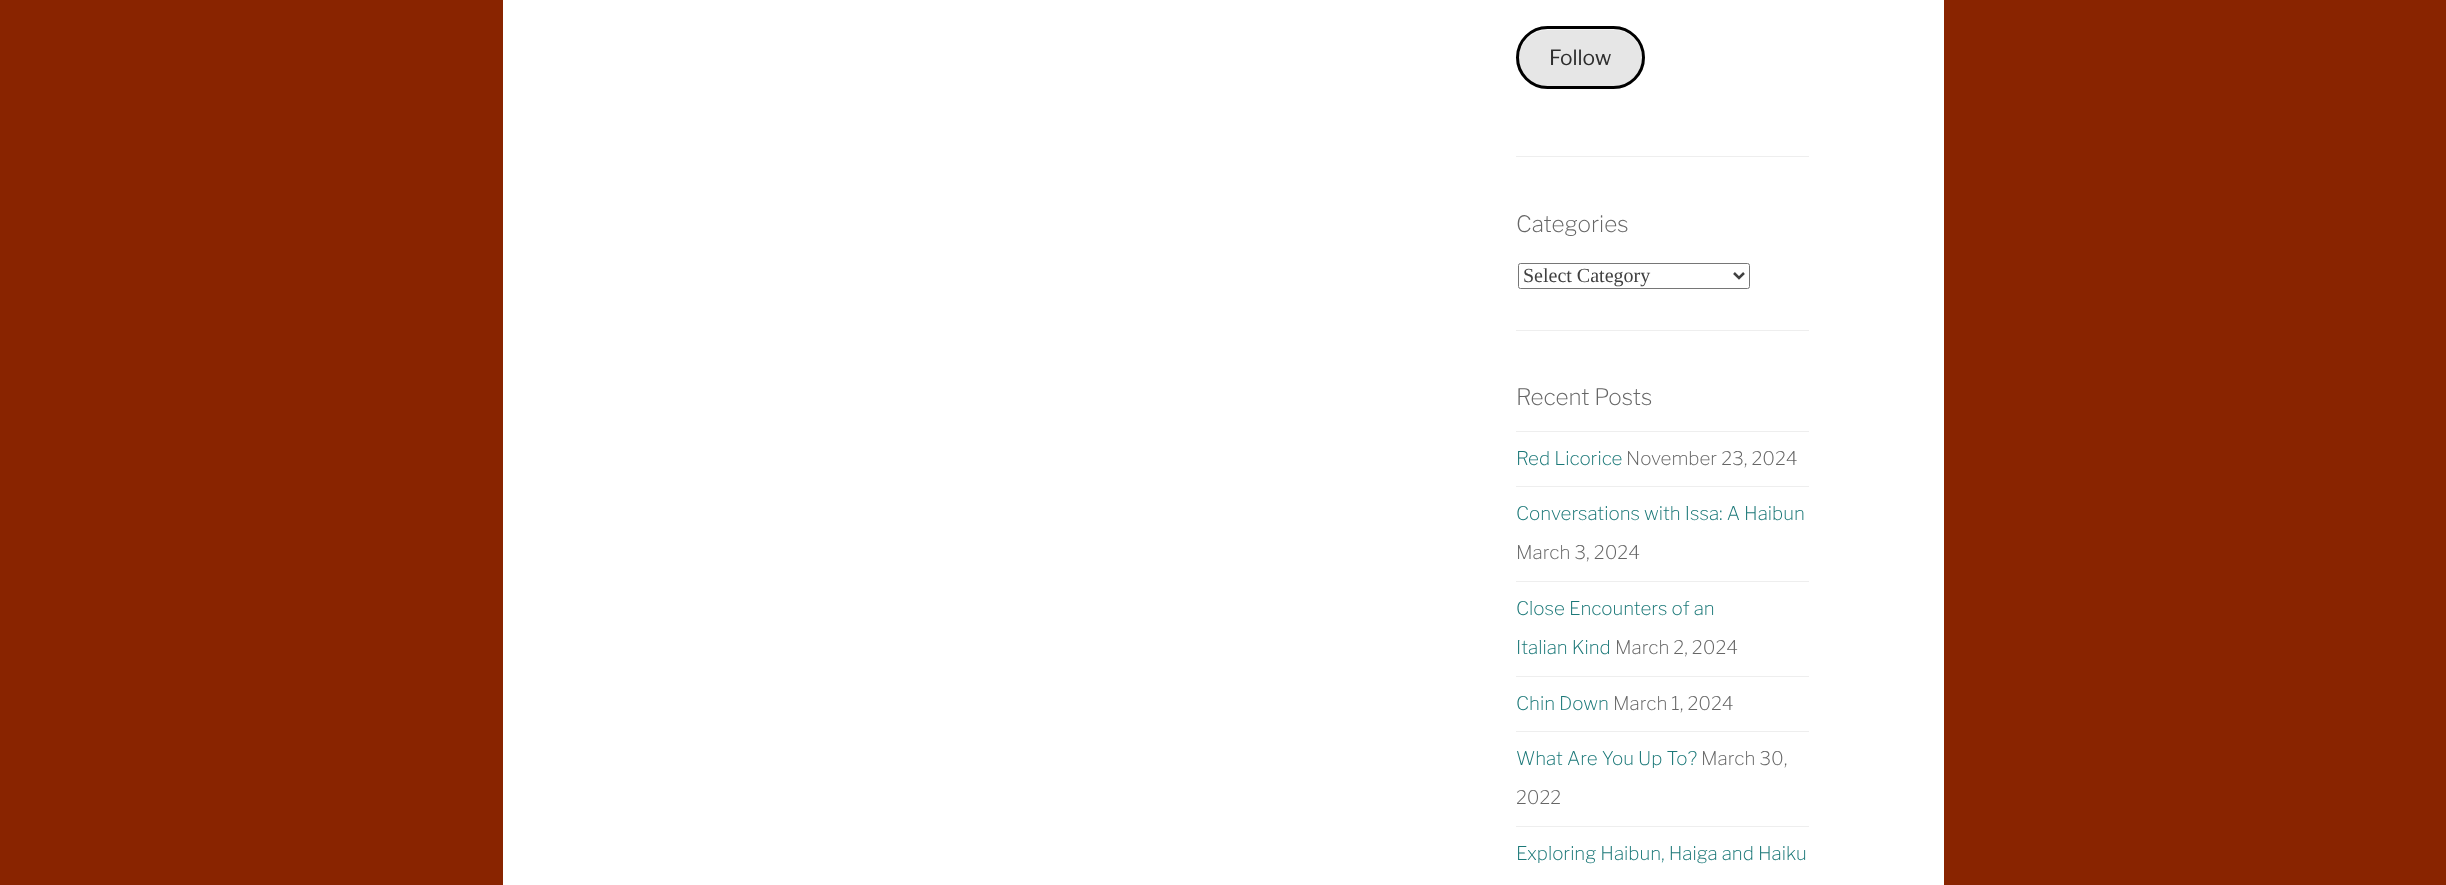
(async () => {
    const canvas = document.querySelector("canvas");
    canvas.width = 2446;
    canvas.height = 885;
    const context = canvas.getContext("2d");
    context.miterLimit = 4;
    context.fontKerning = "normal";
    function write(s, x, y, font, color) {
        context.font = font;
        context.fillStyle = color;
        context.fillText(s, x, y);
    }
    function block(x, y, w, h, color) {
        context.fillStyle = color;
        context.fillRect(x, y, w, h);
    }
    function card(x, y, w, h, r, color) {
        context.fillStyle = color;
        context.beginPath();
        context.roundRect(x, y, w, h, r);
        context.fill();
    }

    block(0, 0, 2446, 885, "rgb(137, 36, 0)");
    block(503, 0, 1441, 885, "rgb(255, 255, 255)");
    block(1516, 156, 293, 1, "rgb(238, 238, 238)");
    card(1516, 26, 129, 63, 31.5, "rgb(230, 230, 230)");
    context.fillStyle = "rgb(243, 243, 243)";
    context.beginPath();
    context.moveTo(1548, 30);
    context.lineTo(1614, 30);
    context.bezierCurveTo(1630, 30, 1642, 43, 1642, 59);
    context.bezierCurveTo(1642, 63, 1641, 68, 1639, 71);
    context.bezierCurveTo(1642, 67, 1643, 62, 1643, 58);
    context.bezierCurveTo(1643, 42, 1630, 29, 1614, 29);
    context.lineTo(1548, 29);
    context.bezierCurveTo(1532, 29, 1519, 42, 1519, 58);
    context.bezierCurveTo(1519, 43, 1532, 30, 1548, 30);
    context.closePath();
    context.fill();
    context.beginPath();
    context.roundRect(1517.5, 27.5, 126, 60, 30);
    context.strokeStyle = "rgb(0, 0, 0)";
    context.lineWidth = 3;
    context.stroke();
    write("Follow", 1549, 65, "21px Libre Franklin", "rgb(46, 46, 46)");
    block(1516, 330, 293, 1, "rgb(238, 238, 238)");
    write("Categories", 1516, 232, "200 22.5px Libre Franklin", "rgb(102, 102, 102)");
    context.beginPath();
    context.roundRect(1518.5, 263.5, 231, 25, 2);
    context.strokeStyle = "rgb(118, 118, 118)";
    context.lineWidth = 1;
    context.stroke();
    context.beginPath();
    context.moveTo(1734, 273);
    context.lineTo(1739, 278);
    context.lineTo(1744, 273);
    context.strokeStyle = "rgb(64, 64, 64)";
    context.lineWidth = 2.5;
    context.stroke();
    write("Select Category", 1523, 282, "20px Liberation Serif", "rgb(64, 64, 64)");
    write("Recent Posts", 1516, 405, "200 22.5px Libre Franklin", "rgb(102, 102, 102)");
    block(1516, 431, 293, 1, "rgb(238, 238, 238)");
    write("Red Licorice", 1516, 465, "200 18.75px Libre Franklin", "rgb(27, 120, 120)");
    write("November 23, 2024", 1626, 465, "200 18.75px Libre Franklin", "rgb(102, 102, 102)");
    block(1516, 486, 293, 1, "rgb(238, 238, 238)");
    write("Conversations with Issa: A Haibun", 1516, 520, "200 18.75px Libre Franklin", "rgb(27, 120, 120)");
    write("March 3, 2024", 1516, 559, "200 18.75px Libre Franklin", "rgb(102, 102, 102)");
    block(1516, 581, 293, 1, "rgb(238, 238, 238)");
    write("Close Encounters of an", 1516, 615, "200 18.75px Libre Franklin", "rgb(27, 120, 120)");
    write("Italian Kind", 1516, 654, "200 18.75px Libre Franklin", "rgb(27, 120, 120)");
    write("March 2, 2024", 1615, 654, "200 18.75px Libre Franklin", "rgb(102, 102, 102)");
    block(1516, 676, 293, 1, "rgb(238, 238, 238)");
    write("Chin Down", 1516, 710, "200 18.75px Libre Franklin", "rgb(27, 120, 120)");
    write("March 1, 2024", 1613, 710, "200 18.75px Libre Franklin", "rgb(102, 102, 102)");
    block(1516, 731, 293, 1, "rgb(238, 238, 238)");
    write("What Are You Up To?", 1516, 765, "200 18.75px Libre Franklin", "rgb(27, 120, 120)");
    write("March 30,", 1701, 765, "200 18.75px Libre Franklin", "rgb(102, 102, 102)");
    write("2022", 1516, 804, "200 18.75px Libre Franklin", "rgb(102, 102, 102)");
    block(1516, 826, 293, 1, "rgb(238, 238, 238)");
    write("Exploring Haibun, Haiga and Haiku", 1516, 860, "200 18.75px Libre Franklin", "rgb(27, 120, 120)");
})();
